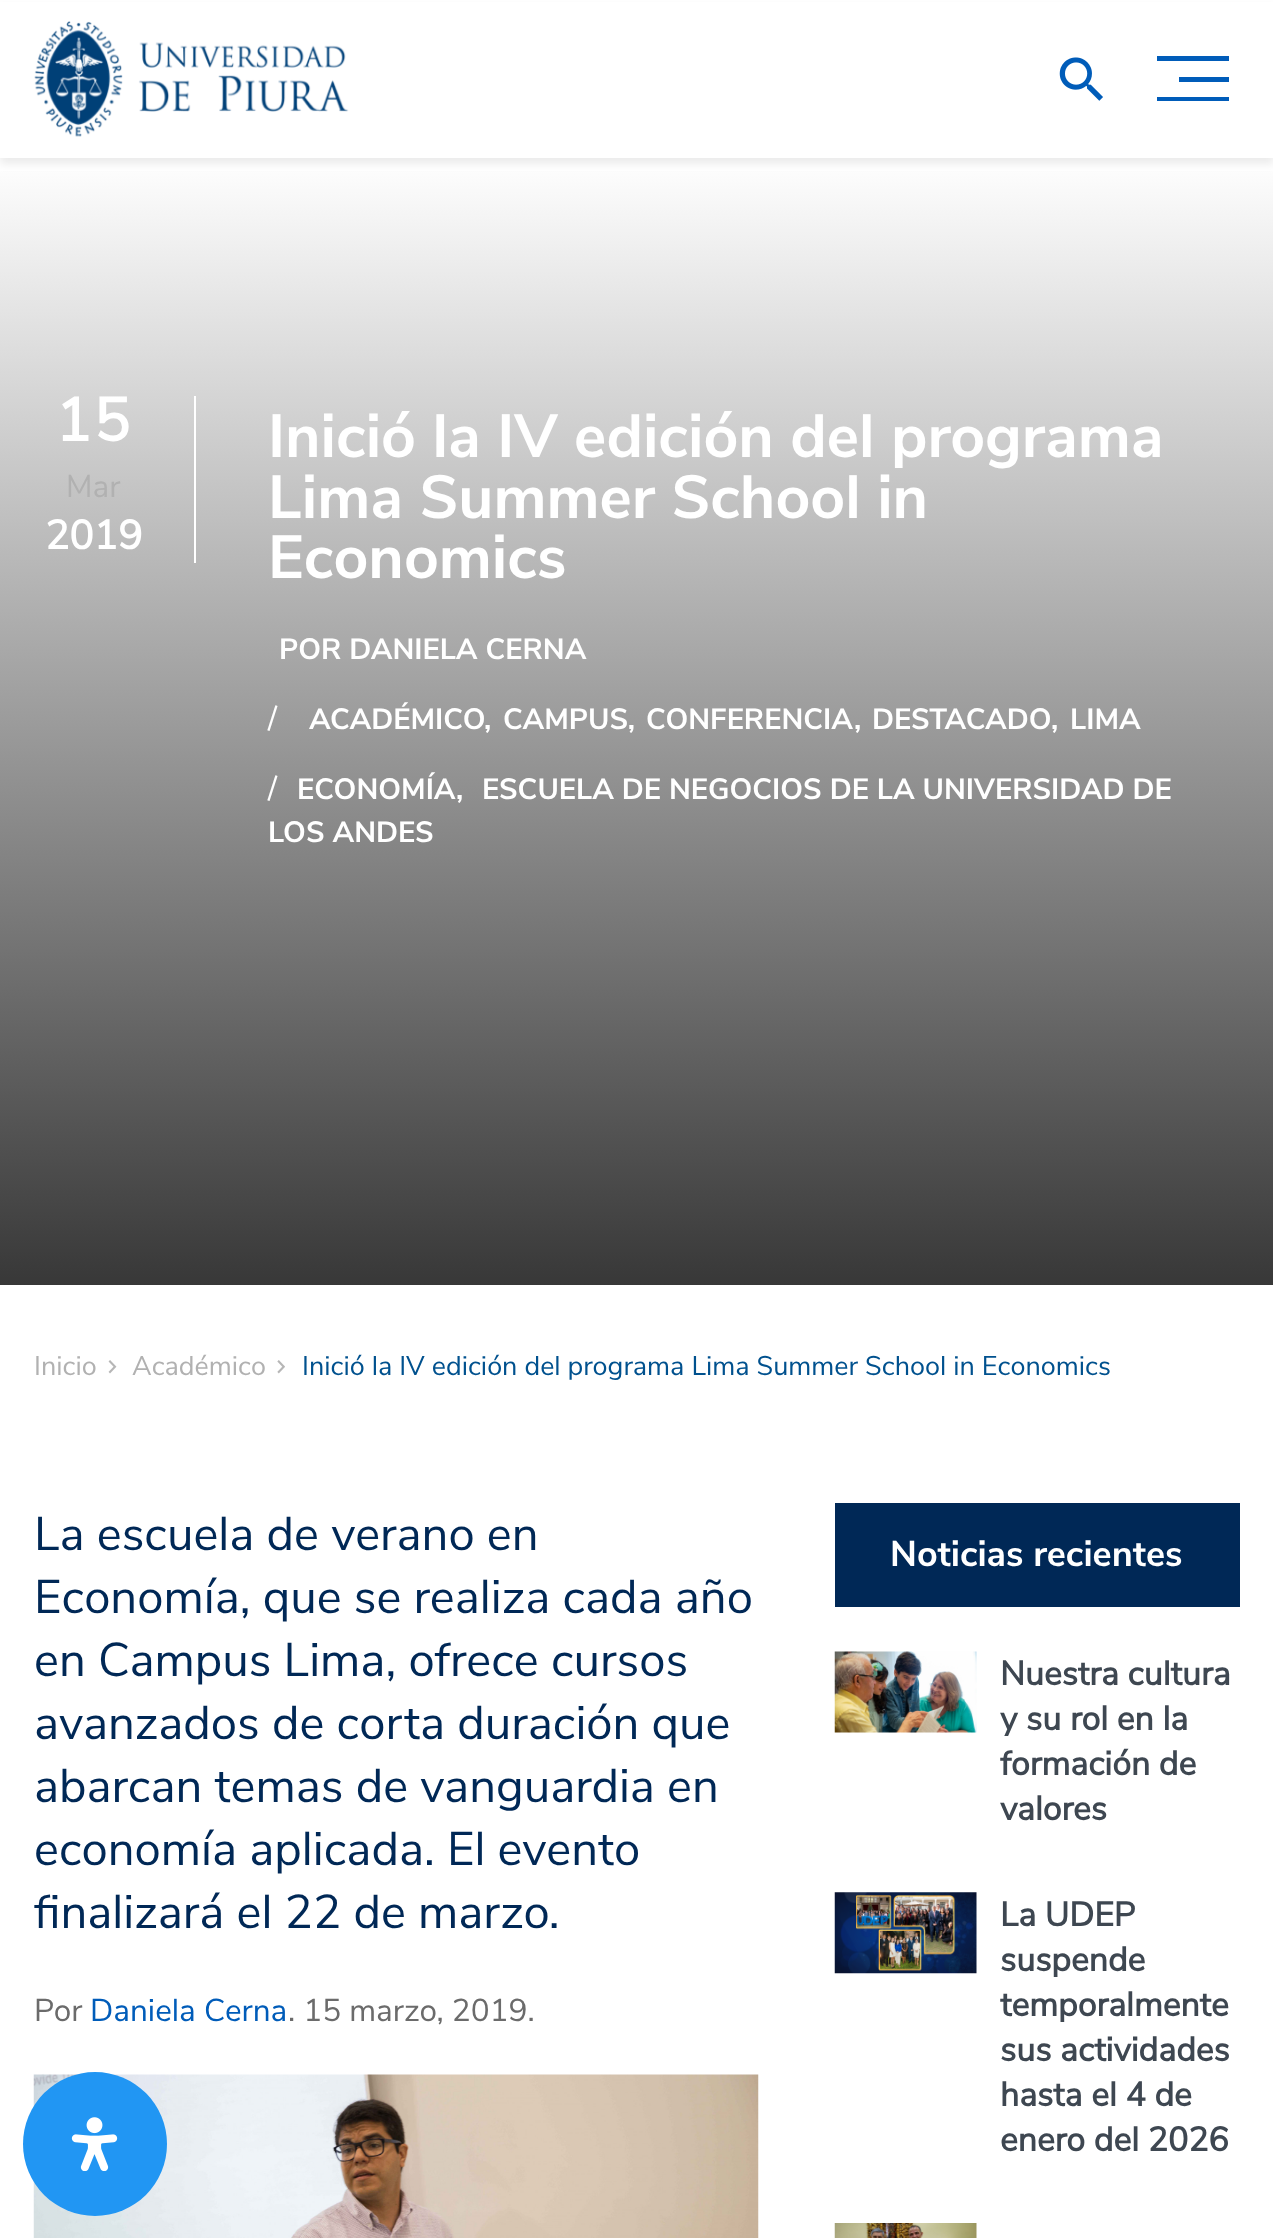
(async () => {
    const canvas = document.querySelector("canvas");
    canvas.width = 1273;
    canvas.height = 2238;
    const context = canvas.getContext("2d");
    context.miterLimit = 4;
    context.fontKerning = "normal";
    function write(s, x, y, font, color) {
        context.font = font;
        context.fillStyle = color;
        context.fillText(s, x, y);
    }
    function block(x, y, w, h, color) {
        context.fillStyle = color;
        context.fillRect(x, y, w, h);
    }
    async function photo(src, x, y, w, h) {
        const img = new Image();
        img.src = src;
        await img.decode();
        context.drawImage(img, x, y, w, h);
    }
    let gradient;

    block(0, 0, 1273, 2238, "rgb(255, 255, 255)");
    gradient = context.createLinearGradient(637, 157, 637, 1454);
    gradient.addColorStop(0, "rgb(255, 255, 255)");
    gradient.addColorStop(1, "rgb(26, 26, 26)");
    context.fillStyle = gradient;
    context.fillRect(0, 171, 1273, 1114);
    context.fillStyle = "rgba(0, 0, 0, 0.08)";
    context.filter = "blur(4.5px)";
    context.beginPath();
    context.rect(0, 7, 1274, 157);
    context.fill();
    context.filter = "none";
    block(0, 2, 1273, 156, "rgb(255, 255, 255)");
    await photo("media/1.png", 34, 21, 315, 116);
    await photo("media/2.png", 1059, 57, 44, 44);
    block(1157, 56, 72, 5, "rgb(0, 92, 185)");
    block(1179, 77, 50, 5, "rgb(0, 92, 185)");
    block(1157, 97, 72, 4, "rgb(0, 92, 185)");
    block(194, 396, 2, 167, "rgb(255, 255, 255)");
    context.letterSpacing = "2px";
    write("15", 55, 441, "bold 60.75px Nunito Sans", "rgb(255, 255, 255)");
    context.letterSpacing = "0px";
    write("Mar", 66, 497, "31.5px Nunito Sans", "rgb(177, 177, 177)");
    write("2019", 45, 549, "bold 40.5px Nunito Sans", "rgb(255, 255, 255)");
    write("Inició la IV edición del programa", 268, 457, "bold 60.75px 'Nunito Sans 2'", "rgb(255, 255, 255)");
    write("Lima Summer School in", 268, 518, "bold 60.75px 'Nunito Sans 2'", "rgb(255, 255, 255)");
    write("Economics", 268, 578, "bold 60.75px 'Nunito Sans 2'", "rgb(255, 255, 255)");
    write("POR DANIELA CERNA", 279, 659, "bold 29.25px 'Nunito Sans 2'", "rgb(255, 255, 255)");
    write("/", 268, 729, "31.5px Nunito Sans", "rgb(255, 255, 255)");
    write("ACADÉMICO", 309, 729, "bold 29.25px 'Nunito Sans 2'", "rgb(255, 255, 255)");
    write(",", 484, 729, "bold 29.25px 'Nunito Sans 2'", "rgb(255, 255, 255)");
    write("CAMPUS,", 503, 729, "bold 29.25px 'Nunito Sans 2'", "rgb(255, 255, 255)");
    write("CONFERENCIA", 646, 729, "bold 29.25px 'Nunito Sans 2'", "rgb(255, 255, 255)");
    write(",", 854, 729, "bold 29.25px 'Nunito Sans 2'", "rgb(255, 255, 255)");
    write("DESTACADO", 872, 729, "bold 29.25px 'Nunito Sans 2'", "rgb(255, 255, 255)");
    write(",", 1051, 729, "bold 29.25px 'Nunito Sans 2'", "rgb(255, 255, 255)");
    write("LIMA", 1070, 729, "bold 29.25px 'Nunito Sans 2'", "rgb(255, 255, 255)");
    write("/", 268, 799, "31.5px Nunito Sans", "rgb(255, 255, 255)");
    write("ECONOMÍA", 297, 799, "bold 29.25px 'Nunito Sans 2'", "rgb(255, 255, 255)");
    write(",", 456, 799, "bold 29.25px 'Nunito Sans 2'", "rgb(255, 255, 255)");
    write("ESCUELA DE NEGOCIOS DE LA UNIVERSIDAD DE", 482, 799, "bold 29.25px 'Nunito Sans 2'", "rgb(255, 255, 255)");
    write("LOS ANDES", 268, 842, "bold 29.25px 'Nunito Sans 2'", "rgb(255, 255, 255)");
    write("Inicio", 34, 1375, "27px Nunito Sans", "rgb(177, 177, 177)");
    await photo("media/3.png", 108, 1360, 9, 14);
    write("Académico", 132, 1375, "27px Nunito Sans", "rgb(177, 177, 177)");
    await photo("media/4.png", 277, 1360, 8, 14);
    write("Inició la IV edición del programa Lima Summer School in Economics", 302, 1375, "27px Nunito Sans", "rgb(0, 81, 142)");
    write("La escuela de verano en", 34, 1550, "47.25px Nunito Sans", "rgb(0, 40, 86)");
    write("Economía, que se realiza cada año", 34, 1613, "47.25px Nunito Sans", "rgb(0, 40, 86)");
    write("en Campus Lima, ofrece cursos", 34, 1676, "47.25px Nunito Sans", "rgb(0, 40, 86)");
    write("avanzados de corta duración que", 34, 1739, "47.25px Nunito Sans", "rgb(0, 40, 86)");
    write("abarcan temas de vanguardia en", 34, 1802, "47.25px Nunito Sans", "rgb(0, 40, 86)");
    write("economía aplicada. El evento", 34, 1865, "47.25px Nunito Sans", "rgb(0, 40, 86)");
    write("finalizará el 22 de marzo.", 34, 1928, "47.25px Nunito Sans", "rgb(0, 40, 86)");
    write("Por", 34, 2021, "31.5px Nunito Sans", "rgb(107, 107, 107)");
    write("Daniela Cerna", 90, 2021, "31.5px Nunito Sans", "rgb(0, 92, 185)");
    write(". 15 marzo, 2019.", 288, 2021, "31.5px Nunito Sans", "rgb(107, 107, 107)");
    await photo("media/5.png", 33, 2074, 726, 164);
    block(835, 1503, 405, 104, "rgb(0, 40, 86)");
    write("Noticias recientes", 890, 1566, "bold 36px 'Nunito Sans 2'", "rgb(255, 255, 255)");
    await photo("media/6.png", 834, 1651, 143, 82);
    write("Nuestra cultura", 1000, 1685, "bold 33.75px Nunito Sans", "rgb(62, 71, 81)");
    write("y su rol en la", 1000, 1730, "bold 33.75px Nunito Sans", "rgb(62, 71, 81)");
    write("formación de", 1000, 1775, "bold 33.75px Nunito Sans", "rgb(62, 71, 81)");
    write("valores", 1000, 1820, "bold 33.75px Nunito Sans", "rgb(62, 71, 81)");
    await photo("media/7.png", 834, 1892, 143, 82);
    write("La UDEP", 1000, 1926, "bold 33.75px Nunito Sans", "rgb(62, 71, 81)");
    write("suspende", 1000, 1971, "bold 33.75px Nunito Sans", "rgb(62, 71, 81)");
    write("temporalmente", 1000, 2016, "bold 33.75px Nunito Sans", "rgb(62, 71, 81)");
    write("sus actividades", 1000, 2061, "bold 33.75px Nunito Sans", "rgb(62, 71, 81)");
    write("hasta el 4 de", 1000, 2106, "bold 33.75px Nunito Sans", "rgb(62, 71, 81)");
    write("enero del 2026", 1000, 2151, "bold 33.75px Nunito Sans", "rgb(62, 71, 81)");
    await photo("media/8.png", 834, 2223, 143, 15);
    context.fillStyle = "rgb(33, 150, 243)";
    context.beginPath();
    context.arc(95, 2144, 72, 0, Math.PI * 2);
    context.fill();
    await photo("media/9.png", 71, 2117, 47, 54);
})();
